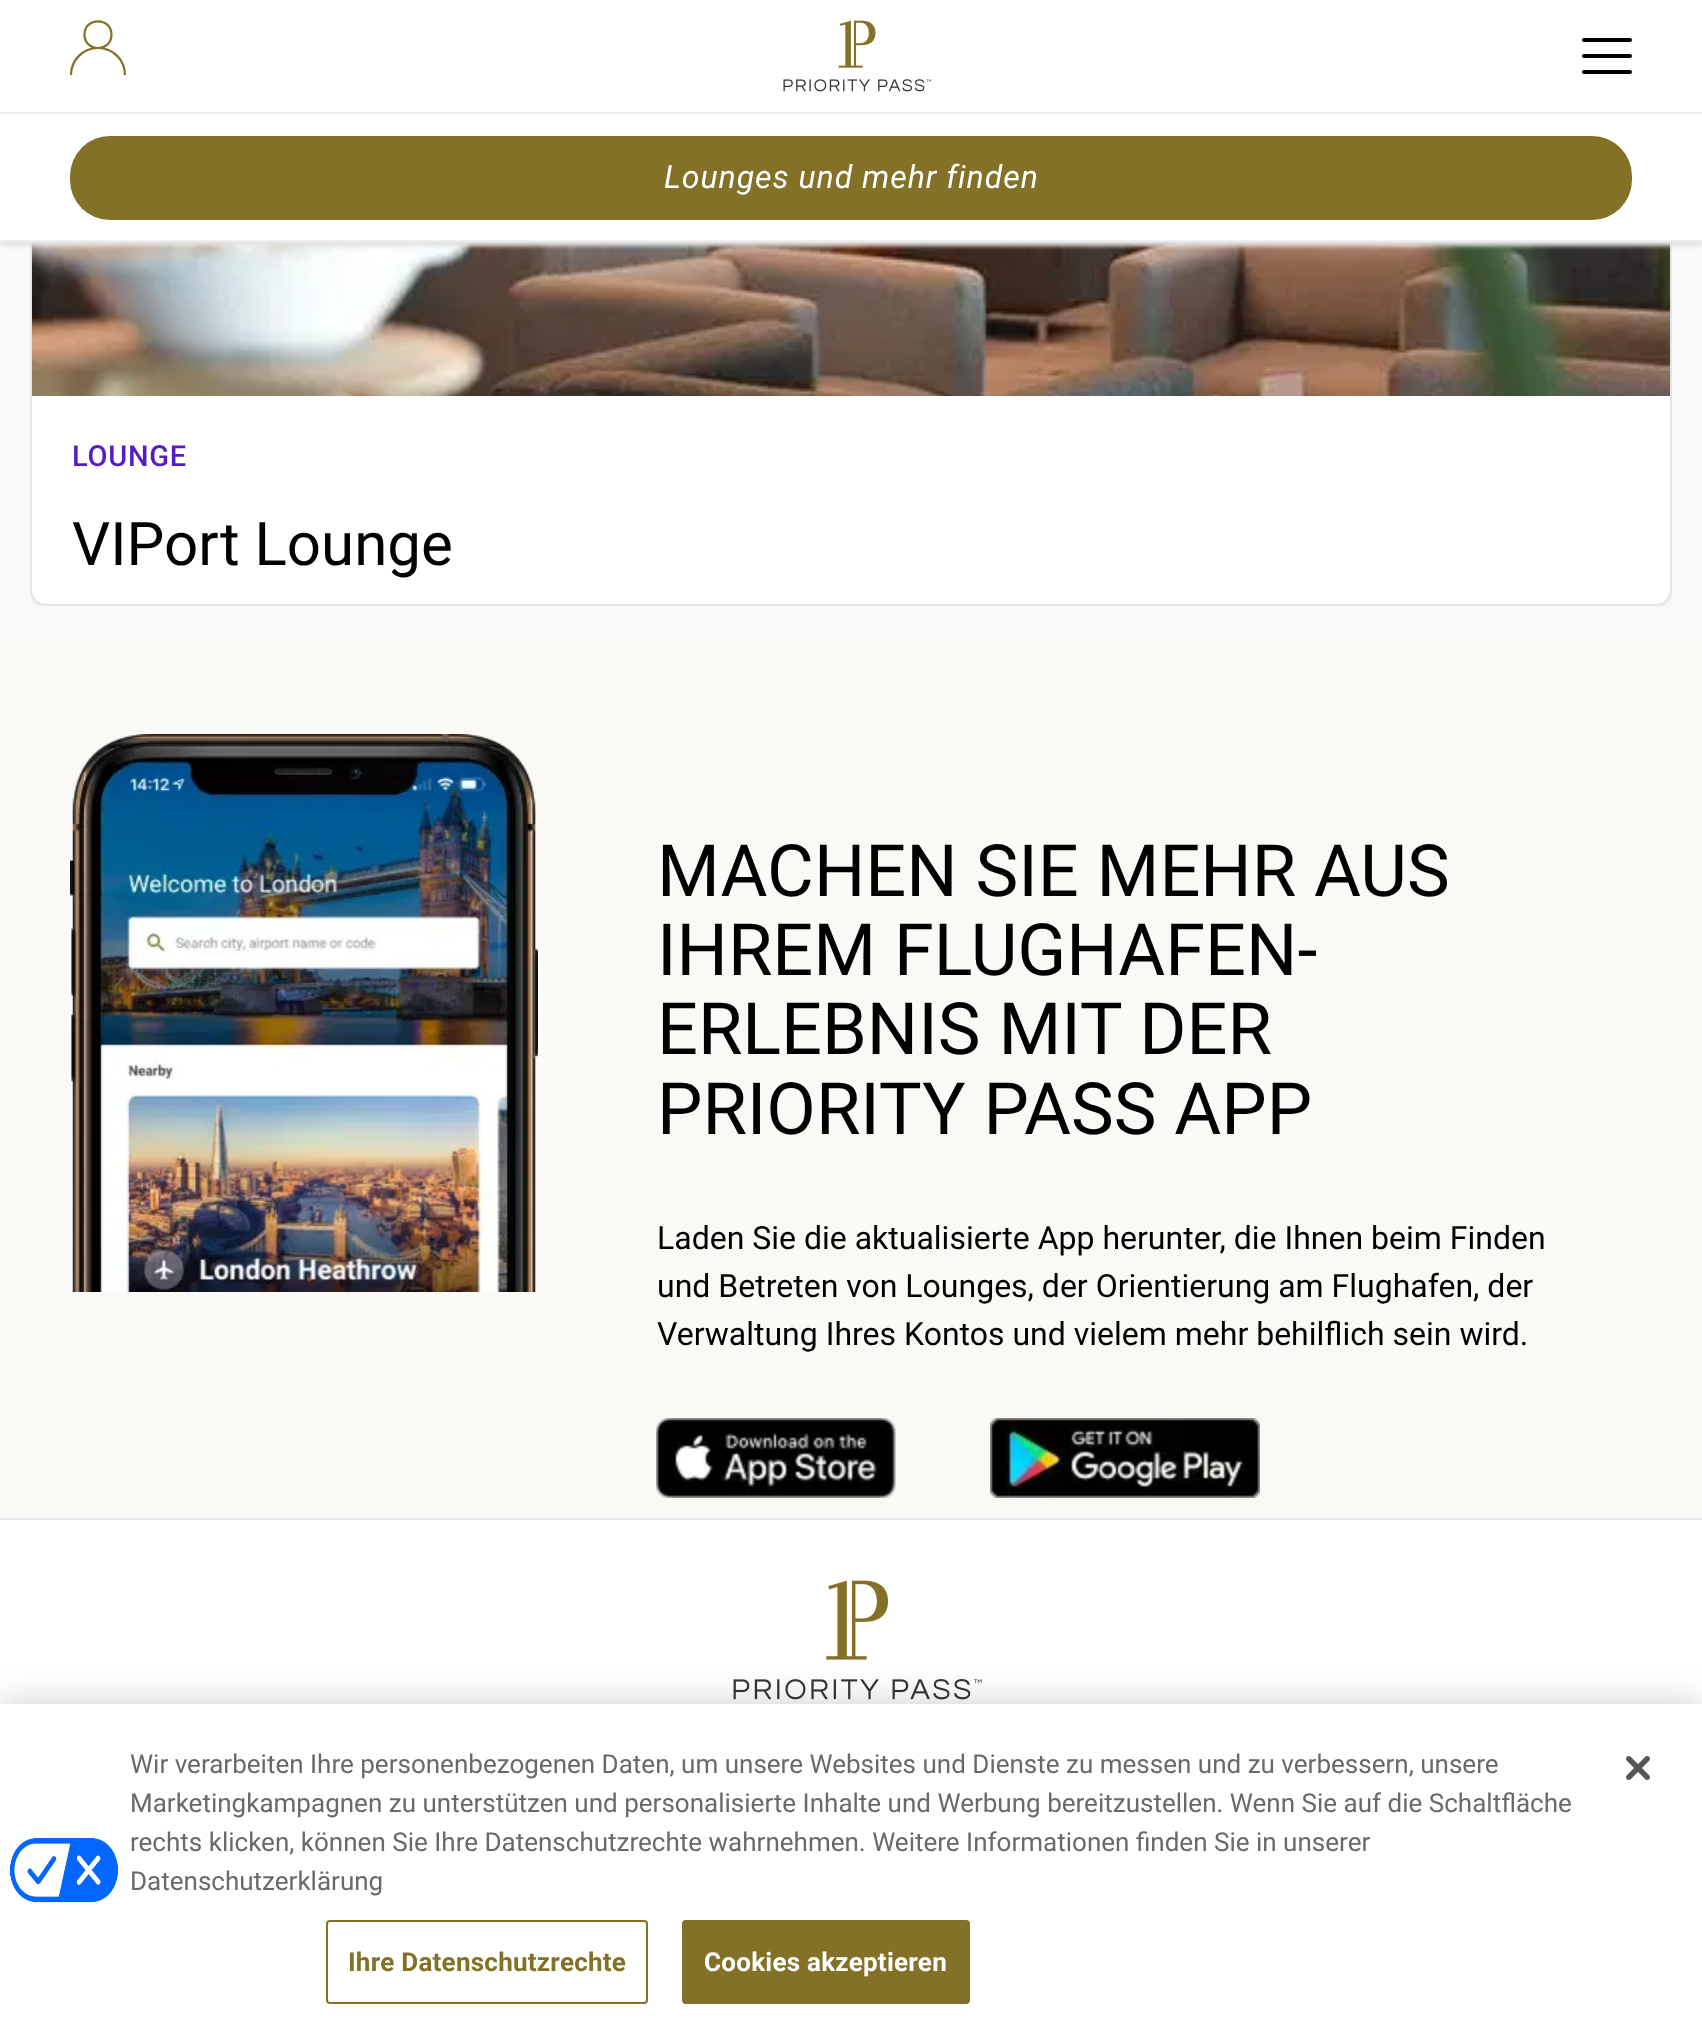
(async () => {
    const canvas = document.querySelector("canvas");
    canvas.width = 1702;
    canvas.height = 2036;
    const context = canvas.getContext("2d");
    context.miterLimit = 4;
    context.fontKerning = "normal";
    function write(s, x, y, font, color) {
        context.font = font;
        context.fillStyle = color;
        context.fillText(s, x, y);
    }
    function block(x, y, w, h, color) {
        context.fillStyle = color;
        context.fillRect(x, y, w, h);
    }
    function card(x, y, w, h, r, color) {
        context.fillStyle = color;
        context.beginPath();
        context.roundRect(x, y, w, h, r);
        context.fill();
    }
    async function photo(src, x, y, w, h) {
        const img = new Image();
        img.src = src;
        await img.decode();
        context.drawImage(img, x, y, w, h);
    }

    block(0, 0, 1702, 2036, "rgb(255, 255, 255)");
    block(0, 242, 1702, 396, "rgb(249, 249, 249)");
    context.save();
    context.beginPath();
    context.rect(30, 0, 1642, 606);
    context.clip();
    context.fillStyle = "rgba(0, 0, 0, 0.05)";
    context.filter = "blur(2px)";
    context.beginPath();
    context.roundRect(30, -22, 1642, 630, 16);
    context.fill();
    context.filter = "none";
    context.restore();
    context.fillStyle = "rgb(255, 255, 255)";
    context.beginPath();
    context.roundRect(31, -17, 1640, 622, 15);
    context.fill();
    context.strokeStyle = "rgb(227, 228, 227)";
    context.lineWidth = 2;
    context.stroke();
    await photo("media/2.png", 32, 242, 1638, 154);
    context.fillStyle = "rgb(227, 225, 225)";
    context.filter = "blur(2px)";
    context.beginPath();
    context.rect(0, 4, 1702, 242);
    context.fill();
    context.filter = "none";
    block(0, 0, 1702, 240, "rgb(255, 255, 255)");
    block(0, 240, 1702, 2, "rgb(238, 238, 238)");
    block(0, 112, 1702, 2, "rgb(238, 238, 238)");
    context.beginPath();
    context.moveTo(111.5, 34.5);
    context.bezierCurveTo(111.5, 52.5, 84.5, 52.5, 84.5, 34.5);
    context.bezierCurveTo(84.5, 17, 111.5, 17, 111.5, 34.5);
    context.moveTo(71, 75);
    context.bezierCurveTo(71, 60, 83, 48, 98, 48);
    context.bezierCurveTo(113, 48, 125, 60, 125, 75);
    context.strokeStyle = "rgb(130, 113, 39)";
    context.lineWidth = 2.2;
    context.stroke();
    await photo("media/1.png", 783, 20, 149, 72);
    card(1582, 38, 50, 4, 2, "rgb(0, 0, 0)");
    card(1582, 54, 50, 4, 2, "rgb(0, 0, 0)");
    card(1582, 70, 50, 4, 2, "rgb(0, 0, 0)");
    card(70, 136, 1562, 84, 40, "rgb(130, 113, 39)");
    context.letterSpacing = "1px";
    write("Lounges und mehr finden", 664, 188, "italic 32px Roboto", "rgb(255, 255, 255)");
    context.letterSpacing = "0.75px";
    write("LOUNGE", 72, 466, "500 29px Roboto", "rgb(84, 28, 196)");
    context.letterSpacing = "0px";
    write("VIPort Lounge", 72, 565, "60px Roboto", "rgb(0, 0, 0)");
    block(0, 638, 1702, 880, "rgb(250, 249, 245)");
    await photo("media/3.png", 70, 734, 468, 558);
    write("MACHEN SIE MEHR AUS", 657, 896, "72px Roboto", "rgb(0, 0, 0)");
    write("IHREM FLUGHAFEN-", 657, 975, "72px Roboto", "rgb(0, 0, 0)");
    write("ERLEBNIS MIT DER", 657, 1054, "72px Roboto", "rgb(0, 0, 0)");
    write("PRIORITY PASS APP", 657, 1134, "72px Roboto", "rgb(0, 0, 0)");
    write("Laden Sie die aktualisierte App herunter, die Ihnen beim Finden", 657, 1249, "32px Roboto", "rgb(0, 0, 0)");
    write("und Betreten von Lounges, der Orientierung am Flughafen, der", 657, 1297, "32px Roboto", "rgb(0, 0, 0)");
    write("Verwaltung Ihres Kontos und vielem mehr behilflich sein wird.", 657, 1345, "32px Roboto", "rgb(0, 0, 0)");
    await photo("media/4.png", 656, 1418, 240, 80);
    await photo("media/5.png", 990, 1418, 270, 80);
    block(0, 1518, 1702, 2, "rgb(229, 231, 235)");
    await photo("media/6.png", 733, 1580, 249, 120);
    context.fillStyle = "rgba(0, 0, 0, 0.2)";
    context.filter = "blur(18px)";
    context.beginPath();
    context.rect(0, 1704, 1702, 332);
    context.fill();
    context.filter = "none";
    block(0, 1704, 1702, 332, "rgb(255, 255, 255)");
    await photo("media/7.png", 10, 1838, 108, 65);
    write("Wir verarbeiten Ihre personenbezogenen Daten, um unsere Websites und Dienste zu messen und zu verbessern, unsere", 130, 1773, "26.02px Roboto", "rgb(105, 105, 105)");
    write("Marketingkampagnen zu unterstützen und personalisierte Inhalte und Werbung bereitzustellen. Wenn Sie auf die Schaltfläche", 130, 1812, "26.02px Roboto", "rgb(105, 105, 105)");
    write("rechts klicken, können Sie Ihre Datenschutzrechte wahrnehmen. Weitere Informationen finden Sie in unserer", 130, 1851, "26.02px Roboto", "rgb(105, 105, 105)");
    write("Datenschutzerklärung", 130, 1890, "26.02px Roboto", "rgb(105, 105, 105)");
    context.beginPath();
    context.roundRect(327, 1921, 320, 82, 3);
    context.lineWidth = 2;
    context.stroke();
    context.letterSpacing = "0.25px";
    write("Ihre Datenschutzrechte", 348, 1971, "bold 26.02px Roboto", "rgb(130, 113, 39)");
    context.beginPath();
    context.roundRect(683, 1921, 286, 82, 3);
    context.fill();
    context.stroke();
    write("Cookies akzeptieren", 704, 1971, "bold 26.02px Roboto", "rgb(255, 255, 255)");
    await photo("media/8.png", 1626, 1756, 24, 24);
})();
